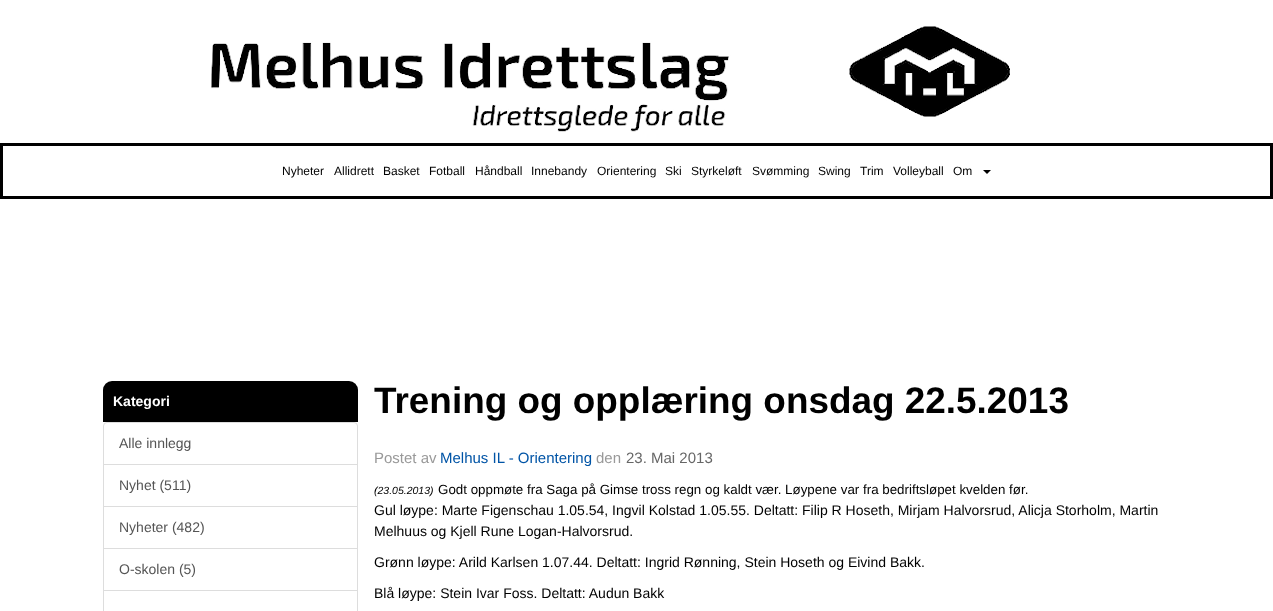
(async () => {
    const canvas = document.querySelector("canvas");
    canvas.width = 1273;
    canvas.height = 611;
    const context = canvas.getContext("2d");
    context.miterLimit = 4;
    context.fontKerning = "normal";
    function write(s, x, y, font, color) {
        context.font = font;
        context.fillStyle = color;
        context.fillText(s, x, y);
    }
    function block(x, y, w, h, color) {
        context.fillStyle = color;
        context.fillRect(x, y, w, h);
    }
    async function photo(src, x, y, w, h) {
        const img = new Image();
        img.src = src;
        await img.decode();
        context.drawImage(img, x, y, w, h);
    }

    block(0, 0, 1273, 611, "rgb(255, 255, 255)");
    await photo("media/1.png", 211, 26, 799, 106);
    context.strokeStyle = "rgb(0, 0, 0)";
    context.lineWidth = 3;
    context.strokeRect(1.5, 144.5, 1270, 53);
    write("Nyheter", 282, 175, "12px Liberation Sans", "rgb(0, 0, 0)");
    write("Allidrett", 334, 175, "12px Liberation Sans", "rgb(0, 0, 0)");
    write("Basket", 383, 175, "12px Liberation Sans", "rgb(0, 0, 0)");
    write("Fotball", 429, 175, "12px Liberation Sans", "rgb(0, 0, 0)");
    write("Håndball", 475, 175, "12px Liberation Sans", "rgb(0, 0, 0)");
    write("Innebandy", 531, 175, "12px Liberation Sans", "rgb(0, 0, 0)");
    write("Orientering", 597, 175, "12px Liberation Sans", "rgb(0, 0, 0)");
    write("Ski", 665, 175, "12px Liberation Sans", "rgb(0, 0, 0)");
    write("Styrkeløft", 691, 175, "12px Liberation Sans", "rgb(0, 0, 0)");
    write("Svømming", 752, 175, "12px Liberation Sans", "rgb(0, 0, 0)");
    write("Swing", 818, 175, "12px Liberation Sans", "rgb(0, 0, 0)");
    write("Trim", 860, 175, "12px Liberation Sans", "rgb(0, 0, 0)");
    write("Volleyball", 893, 175, "12px Liberation Sans", "rgb(0, 0, 0)");
    write("Om", 953, 175, "12px Liberation Sans", "rgb(0, 0, 0)");
    context.beginPath();
    context.moveTo(983, 170);
    context.lineTo(991, 170);
    context.lineTo(987, 174);
    context.closePath();
    context.fill();
    context.beginPath();
    context.roundRect(103, 381, 255, 41, [9, 9, 0, 0]);
    context.fill();
    write("Kategori", 113, 406, "bold 14px Liberation Sans", "rgb(255, 255, 255)");
    context.beginPath();
    context.roundRect(103.5, 422.5, 254, 42, [3.5, 3.5, 0, 0]);
    context.strokeStyle = "rgb(221, 221, 221)";
    context.lineWidth = 1;
    context.stroke();
    write("Alle innlegg", 119, 448, "14px Liberation Sans", "rgb(85, 85, 85)");
    context.strokeRect(103.5, 464.5, 254, 42);
    write("Nyhet (511)", 119, 490, "14px Liberation Sans", "rgb(85, 85, 85)");
    context.strokeRect(103.5, 506.5, 254, 42);
    write("Nyheter (482)", 119, 532, "14px Liberation Sans", "rgb(85, 85, 85)");
    context.strokeRect(103.5, 548.5, 254, 42);
    write("O-skolen (5)", 119, 574, "14px Liberation Sans", "rgb(85, 85, 85)");
    context.strokeRect(103.5, 590.5, 254, 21);
    write("Trening og opplæring onsdag 22.5.2013", 374, 413, "bold 36.9px Liberation Sans", "rgb(0, 0, 0)");
    write("Postet av", 374, 463, "15px Liberation Sans", "rgb(153, 153, 153)");
    write("Melhus IL - Orientering", 440, 463, "15px Liberation Sans", "rgb(0, 84, 166)");
    write("den", 596, 463, "15px Liberation Sans", "rgb(153, 153, 153)");
    write("23. Mai 2013", 626, 463, "15px Liberation Sans", "rgb(102, 102, 102)");
    write("(23.05.2013)", 374, 494, "italic 10.5px Liberation Sans", "rgb(0, 0, 0)");
    write("Godt oppmøte fra Saga på Gimse tross regn og kaldt vær. Løypene var fra bedriftsløpet kvelden før.", 438, 494, "13.35px Liberation Sans", "rgb(0, 0, 0)");
    write("Gul løype: Marte Figenschau 1.05.54, Ingvil Kolstad 1.05.55. Deltatt: Filip R Hoseth, Mirjam Halvorsrud, Alicja Storholm, Martin", 374, 515, "14px Liberation Sans", "rgb(0, 0, 0)");
    write("Melhuus og Kjell Rune Logan-Halvorsrud.", 374, 536, "14px Liberation Sans", "rgb(0, 0, 0)");
    write("Grønn løype: Arild Karlsen 1.07.44. Deltatt: Ingrid Rønning, Stein Hoseth og Eivind Bakk.", 374, 567, "14px Liberation Sans", "rgb(0, 0, 0)");
    write("Blå løype: Stein Ivar Foss. Deltatt: Audun Bakk", 374, 598, "14px Liberation Sans", "rgb(0, 0, 0)");
})();
